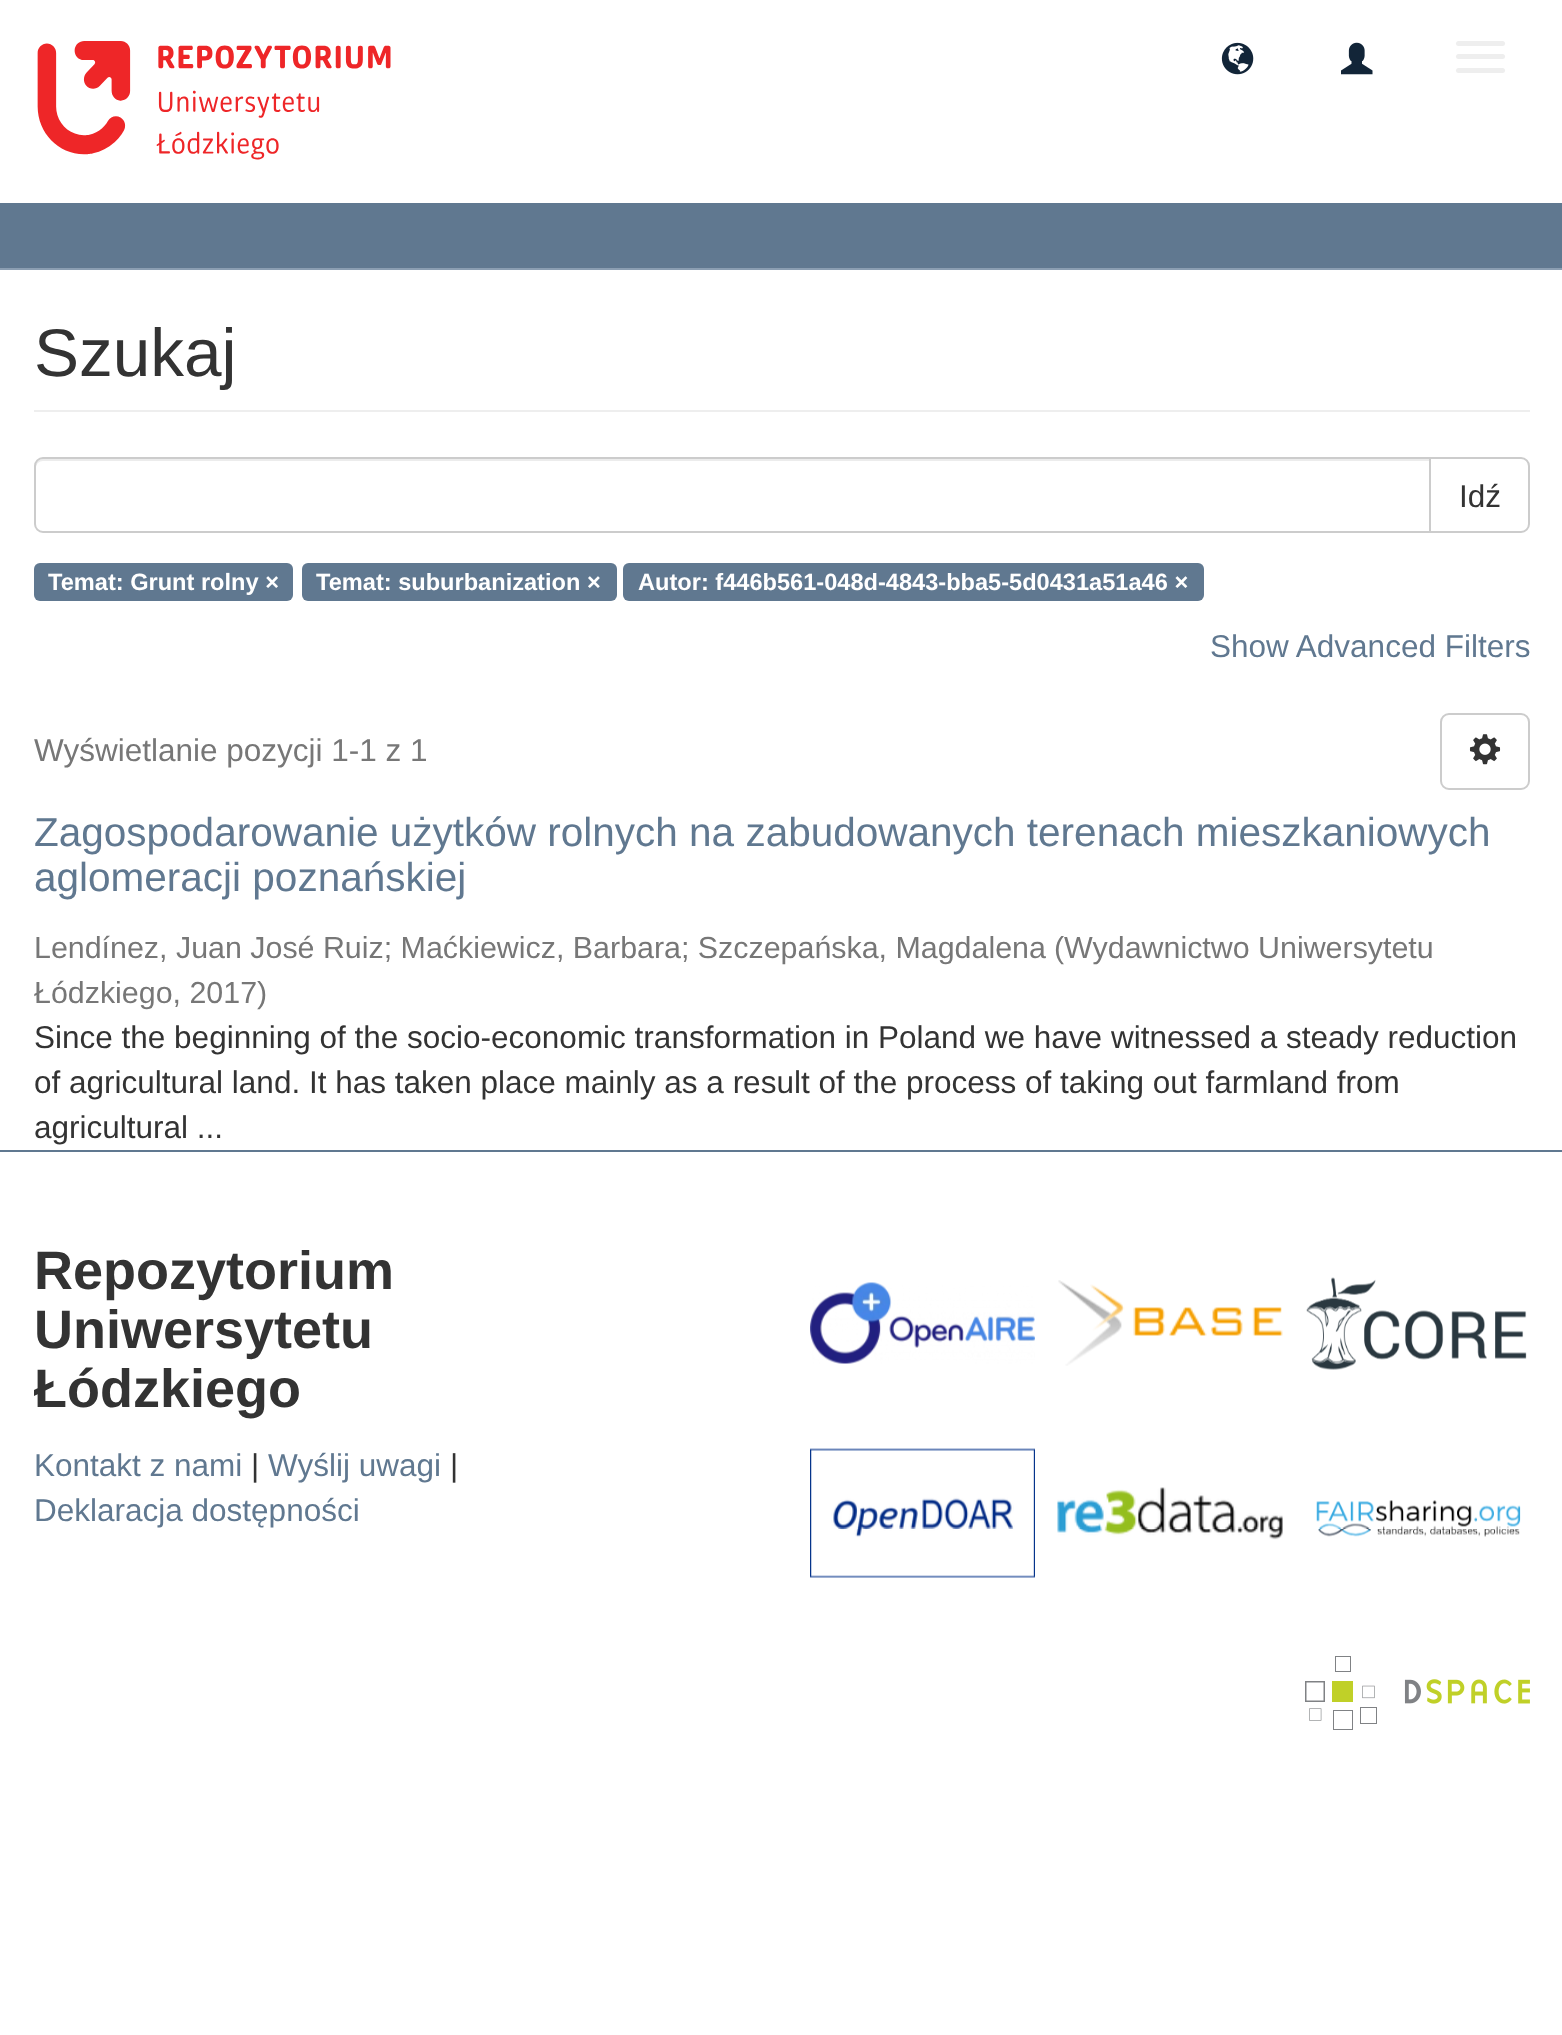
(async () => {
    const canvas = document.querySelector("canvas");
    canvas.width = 1562;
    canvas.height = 2035;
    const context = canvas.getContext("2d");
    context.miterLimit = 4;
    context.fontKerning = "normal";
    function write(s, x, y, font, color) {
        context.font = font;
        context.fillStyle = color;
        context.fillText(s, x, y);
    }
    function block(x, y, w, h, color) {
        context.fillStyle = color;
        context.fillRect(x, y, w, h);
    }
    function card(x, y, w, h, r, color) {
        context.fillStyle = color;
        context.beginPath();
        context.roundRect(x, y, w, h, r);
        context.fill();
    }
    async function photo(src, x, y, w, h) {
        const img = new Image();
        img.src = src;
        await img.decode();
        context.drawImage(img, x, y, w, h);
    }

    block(0, 0, 1562, 2035, "rgb(255, 255, 255)");
    await photo("media/1.png", 37, 41, 354, 119);
    await photo("media/2.png", 1221, 42, 33, 33);
    await photo("media/3.png", 1341, 42, 32, 33);
    card(1456, 41, 49, 5, 2.5, "rgb(238, 238, 238)");
    card(1456, 54, 49, 5, 2.5, "rgb(238, 238, 238)");
    card(1456, 68, 49, 5, 2.5, "rgb(238, 238, 238)");
    block(0, 203, 1562, 65, "rgb(96, 120, 144)");
    block(0, 268, 1562, 2, "rgb(139, 158, 178)");
    block(34, 410, 1496, 2, "rgb(238, 238, 238)");
    write("Szukaj", 34, 376, "67.5px Liberation Sans", "rgb(51, 51, 51)");
    context.beginPath();
    context.roundRect(1430, 458, 99, 74, [0, 8, 8, 0]);
    context.strokeStyle = "rgb(204, 204, 204)";
    context.lineWidth = 2;
    context.stroke();
    context.fillStyle = "rgb(255, 255, 255)";
    context.beginPath();
    context.roundRect(34, 457, 1397, 76, [9, 0, 0, 9]);
    context.fill();
    context.fillStyle = "rgb(236, 236, 236)";
    context.beginPath();
    context.moveTo(43, 461);
    context.lineTo(1429, 461);
    context.lineTo(1429, 459);
    context.lineTo(43, 459);
    context.bezierCurveTo(39, 459, 36, 462, 36, 466);
    context.lineTo(36, 468);
    context.bezierCurveTo(36, 464, 39, 461, 43, 461);
    context.closePath();
    context.fill();
    context.beginPath();
    context.roundRect(35, 458, 1395, 74, [8, 0, 0, 8]);
    context.stroke();
    write("Idź", 1459, 507, "31.5px Liberation Sans", "rgb(51, 51, 51)");
    card(34, 563, 259, 38, 6, "rgb(96, 120, 144)");
    write("Temat: Grunt rolny ×", 48, 590, "bold 23.6px Liberation Sans", "rgb(255, 255, 255)");
    card(302, 563, 315, 38, 6, "rgb(96, 120, 144)");
    write("Temat: suburbanization ×", 316, 590, "bold 23.6px Liberation Sans", "rgb(255, 255, 255)");
    card(623, 563, 581, 38, 6, "rgb(96, 120, 144)");
    write("Autor: f446b561-048d-4843-bba5-5d0431a51a46 ×", 638, 590, "bold 23.6px Liberation Sans", "rgb(255, 255, 255)");
    write("Show Advanced Filters", 1210, 657, "31.5px Liberation Sans", "rgb(96, 120, 144)");
    write("Wyświetlanie pozycji 1-1 z 1", 34, 761, "31.5px Liberation Sans", "rgb(119, 119, 119)");
    context.beginPath();
    context.roundRect(1441, 714, 88, 75, 8);
    context.stroke();
    await photo("media/4.png", 1469, 734, 32, 31);
    write("Zagospodarowanie użytków rolnych na zabudowanych terenach mieszkaniowych", 34, 846, "40.5px Liberation Sans", "rgb(96, 120, 144)");
    write("aglomeracji poznańskiej", 34, 891, "40.5px Liberation Sans", "rgb(96, 120, 144)");
    write("Lendínez, Juan José Ruiz; Maćkiewicz, Barbara; Szczepańska, Magdalena", 34, 958, "30.4px Liberation Sans", "rgb(119, 119, 119)");
    write("(Wydawnictwo Uniwersytetu", 1054, 958, "30.4px Liberation Sans", "rgb(119, 119, 119)");
    write("Łódzkiego, 2017)", 34, 1003, "30.4px Liberation Sans", "rgb(119, 119, 119)");
    write("Since the beginning of the socio-economic transformation in Poland we have witnessed a steady reduction", 34, 1048, "31.5px Liberation Sans", "rgb(51, 51, 51)");
    write("of agricultural land. It has taken place mainly as a result of the process of taking out farmland from", 34, 1093, "31.5px Liberation Sans", "rgb(51, 51, 51)");
    write("agricultural ...", 34, 1138, "31.5px Liberation Sans", "rgb(51, 51, 51)");
    block(0, 1150, 1562, 2, "rgb(96, 120, 144)");
    write("Repozytorium", 34, 1289, "bold 54px Liberation Sans", "rgb(51, 51, 51)");
    write("Uniwersytetu", 34, 1348, "bold 54px Liberation Sans", "rgb(51, 51, 51)");
    write("Łódzkiego", 34, 1407, "bold 54px Liberation Sans", "rgb(51, 51, 51)");
    write("Kontakt z nami", 34, 1476, "31.5px Liberation Sans", "rgb(96, 120, 144)");
    write("|", 251, 1476, "31.5px Liberation Sans", "rgb(51, 51, 51)");
    write("Wyślij uwagi", 268, 1476, "31.5px Liberation Sans", "rgb(96, 120, 144)");
    write("|", 450, 1476, "31.5px Liberation Sans", "rgb(51, 51, 51)");
    write("Deklaracja dostępności", 34, 1521, "31.5px Liberation Sans", "rgb(96, 120, 144)");
    await photo("media/5.png", 810, 1282, 225, 82);
    await photo("media/6.png", 1058, 1280, 225, 86);
    await photo("media/7.png", 1306, 1277, 221, 93);
    await photo("media/8.png", 810, 1448, 225, 130);
    await photo("media/9.png", 1057, 1487, 226, 53);
    await photo("media/10.png", 1316, 1500, 205, 37);
    await photo("media/11.png", 1305, 1656, 225, 74);
})();
